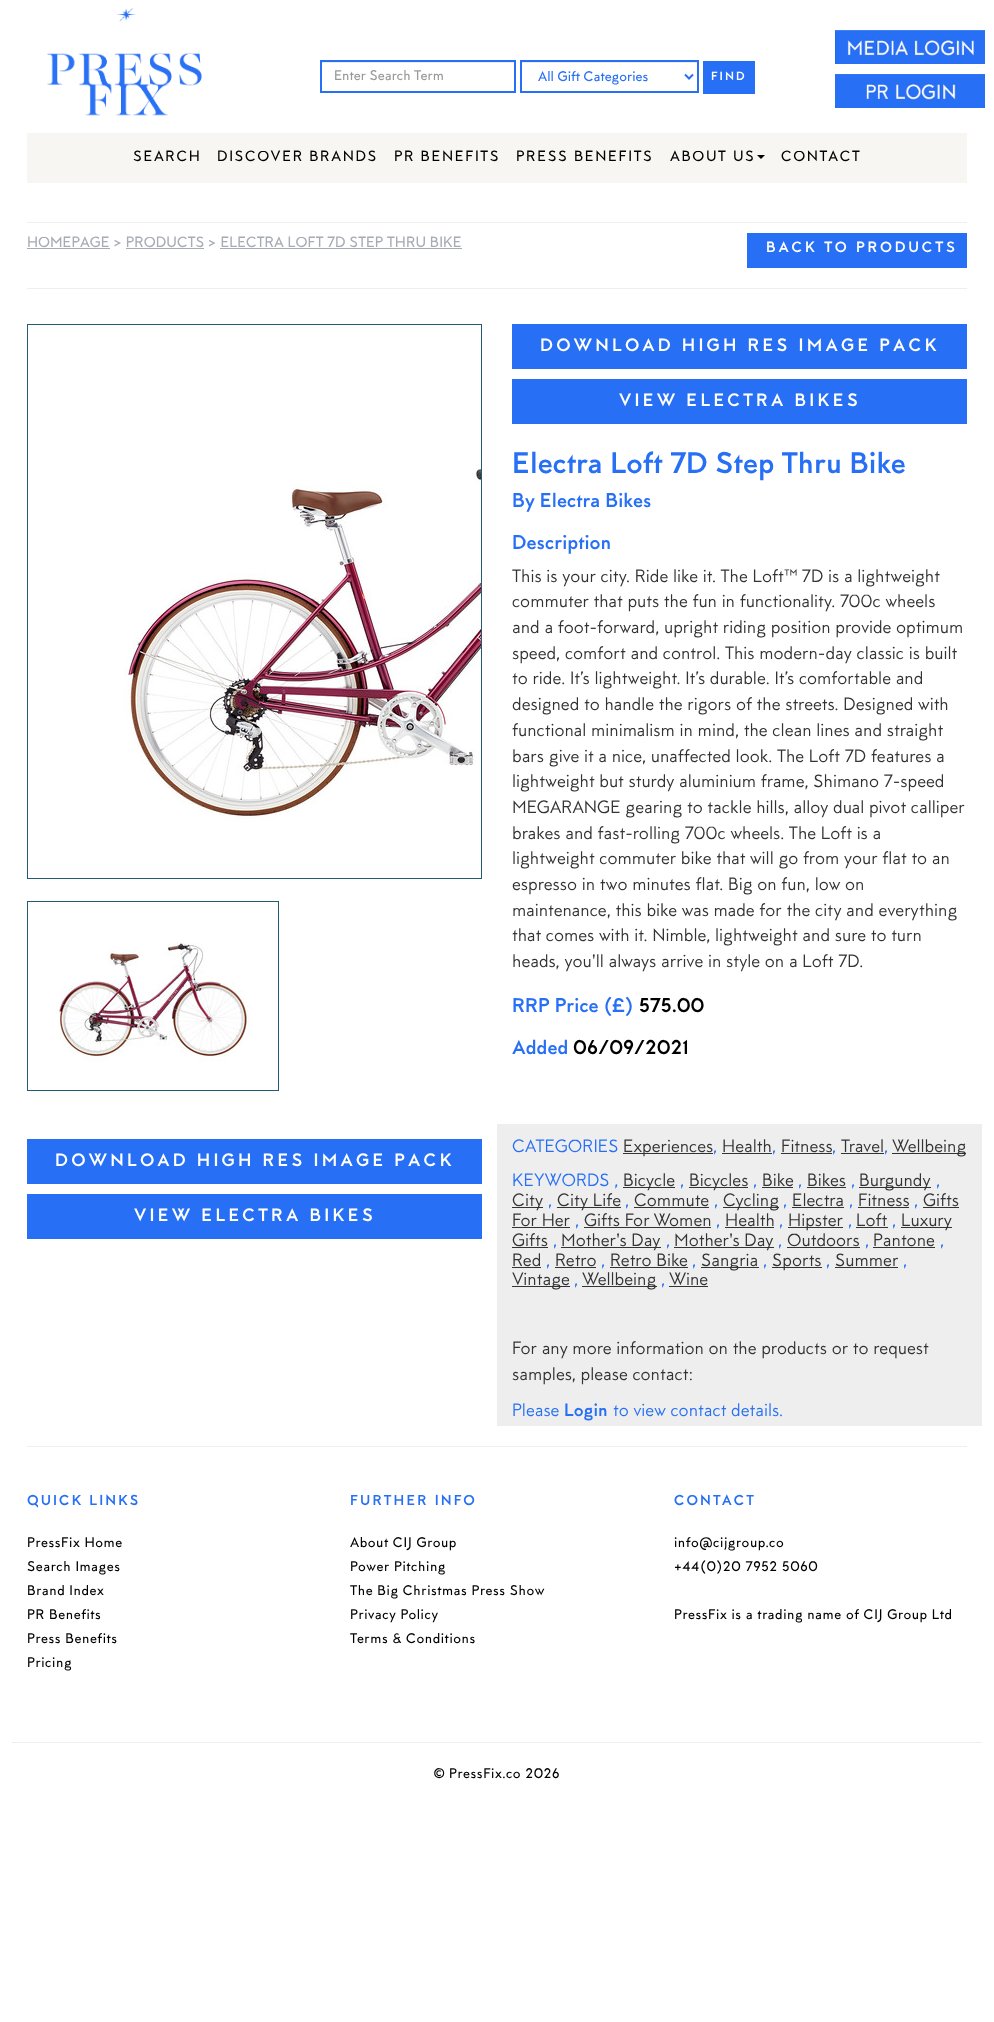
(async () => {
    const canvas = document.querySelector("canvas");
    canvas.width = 994;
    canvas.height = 2022;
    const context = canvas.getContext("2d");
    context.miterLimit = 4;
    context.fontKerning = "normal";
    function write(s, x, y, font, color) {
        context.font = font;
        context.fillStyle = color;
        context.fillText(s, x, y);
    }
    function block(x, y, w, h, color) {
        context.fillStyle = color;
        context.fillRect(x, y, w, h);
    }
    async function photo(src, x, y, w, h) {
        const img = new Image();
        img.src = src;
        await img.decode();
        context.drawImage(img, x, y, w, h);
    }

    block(0, 0, 994, 2022, "rgb(255, 255, 255)");
    await photo("media/1.png", 47, 7, 155, 109);
    block(322, 62, 192, 1, "rgb(236, 236, 236)");
    context.strokeStyle = "rgb(39, 112, 245)";
    context.lineWidth = 2;
    context.strokeRect(321, 61, 194, 31);
    write("Enter Search Term", 334, 80, "500 14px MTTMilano", "rgb(153, 153, 153)");
    block(522, 62, 175, 1, "rgb(236, 236, 236)");
    context.strokeRect(521, 61, 177, 31);
    context.beginPath();
    context.moveTo(685, 74.5);
    context.lineTo(689, 78.5);
    context.lineTo(693, 74.5);
    context.stroke();
    write("All Gift Categories", 538, 81, "500 14px MTTMilano", "rgb(39, 112, 245)");
    block(703, 61, 52, 33, "rgb(39, 112, 245)");
    context.letterSpacing = "2px";
    write("FIND", 711, 80, "bold 12px MTTMilano", "rgb(255, 255, 255)");
    await photo("media/2.png", 835, 30, 150, 34);
    await photo("media/3.png", 835, 74, 150, 34);
    block(27, 133, 940, 50, "rgb(247, 246, 243)");
    context.letterSpacing = "1.6px";
    write("SEARCH", 133, 161, "500 15px MTTMilano", "rgb(0, 0, 0)");
    write("DISCOVER BRANDS", 217, 161, "500 15px MTTMilano", "rgb(0, 0, 0)");
    write("PR BENEFITS", 394, 161, "500 15px MTTMilano", "rgb(0, 0, 0)");
    write("PRESS BENEFITS", 516, 161, "500 15px MTTMilano", "rgb(0, 0, 0)");
    write("ABOUT US", 670, 161, "500 15px MTTMilano", "rgb(0, 0, 0)");
    context.beginPath();
    context.moveTo(757, 155);
    context.lineTo(765, 155);
    context.lineTo(761, 159);
    context.closePath();
    context.fill();
    write("CONTACT", 781, 161, "500 15px MTTMilano", "rgb(0, 0, 0)");
    block(27, 222, 940, 1, "rgb(238, 238, 238)");
    context.letterSpacing = "0px";
    write("HOMEPAGE > PRODUCTS > ELECTRA LOFT 7D STEP THRU BIKE", 27, 247, "500 15px MTTMilano", "rgb(167, 171, 180)");
    block(27, 248, 83, 1, "rgb(167, 171, 180)");
    block(126, 248, 78, 1, "rgb(167, 171, 180)");
    block(220, 248, 242, 1, "rgb(167, 171, 180)");
    block(747, 233, 220, 35, "rgb(39, 112, 245)");
    context.letterSpacing = "2.75px";
    write("BACK TO PRODUCTS", 766, 252, "bold 15px MTTMilano", "rgb(255, 255, 255)");
    block(27, 288, 940, 1, "rgb(238, 238, 238)");
    block(512, 324, 455, 45, "rgb(39, 112, 245)");
    context.letterSpacing = "3.25px";
    write("DOWNLOAD HIGH RES IMAGE PACK", 540, 351, "bold 18px MTTMilano", "rgb(255, 255, 255)");
    block(512, 379, 455, 45, "rgb(39, 112, 245)");
    write("VIEW ELECTRA BIKES", 619, 406, "bold 18px MTTMilano", "rgb(255, 255, 255)");
    context.letterSpacing = "0px";
    write("Electra Loft 7D Step Thru Bike", 512, 473, "bold 30px MTTMilano", "rgb(39, 112, 245)");
    write("By Electra Bikes", 512, 507, "bold 20px MTTMilano", "rgb(39, 112, 245)");
    write("Description", 512, 549, "bold 20px MTTMilano", "rgb(39, 112, 245)");
    write("This is your city. Ride like it. The Loft™ 7D is a lightweight", 512, 582, "18px MTTMilano", "rgb(51, 51, 51)");
    write("commuter that puts the fun in functionality. 700c wheels", 512, 607, "18px MTTMilano", "rgb(51, 51, 51)");
    write("and a foot-forward, upright riding position provide optimum", 512, 633, "18px MTTMilano", "rgb(51, 51, 51)");
    write("speed, comfort and control. This modern-day classic is built", 512, 659, "18px MTTMilano", "rgb(51, 51, 51)");
    write("to ride. It’s lightweight. It’s durable. It’s comfortable and", 512, 684, "18px MTTMilano", "rgb(51, 51, 51)");
    write("designed to handle the rigors of the streets. Designed with", 512, 710, "18px MTTMilano", "rgb(51, 51, 51)");
    write("functional minimalism in mind, the clean lines and straight", 512, 736, "18px MTTMilano", "rgb(51, 51, 51)");
    write("bars give it a nice, unaffected look. The Loft 7D features a", 512, 762, "18px MTTMilano", "rgb(51, 51, 51)");
    write("lightweight but sturdy aluminium frame, Shimano 7-speed", 512, 787, "18px MTTMilano", "rgb(51, 51, 51)");
    write("MEGARANGE gearing to tackle hills, alloy dual pivot calliper", 512, 813, "18px MTTMilano", "rgb(51, 51, 51)");
    write("brakes and fast-rolling 700c wheels. The Loft is a", 512, 839, "18px MTTMilano", "rgb(51, 51, 51)");
    write("lightweight commuter bike that will go from your flat to an", 512, 864, "18px MTTMilano", "rgb(51, 51, 51)");
    write("espresso in two minutes flat. Big on fun, low on", 512, 890, "18px MTTMilano", "rgb(51, 51, 51)");
    write("maintenance, this bike was made for the city and everything", 512, 916, "18px MTTMilano", "rgb(51, 51, 51)");
    write("that comes with it. Nimble, lightweight and sure to turn", 512, 941, "18px MTTMilano", "rgb(51, 51, 51)");
    write("heads, you'll always arrive in style on a Loft 7D.", 512, 967, "18px MTTMilano", "rgb(51, 51, 51)");
    write("RRP Price (£)", 512, 1012, "bold 20px MTTMilano", "rgb(39, 112, 245)");
    write("575.00", 639, 1012, "bold 20px MTTMilano", "rgb(0, 0, 0)");
    write("Added", 512, 1054, "bold 20px MTTMilano", "rgb(39, 112, 245)");
    write("06/09/2021", 573, 1054, "bold 20px MTTMilano", "rgb(0, 0, 0)");
    context.strokeStyle = "rgb(36, 91, 116)";
    context.lineWidth = 1;
    context.strokeRect(27.5, 324.5, 454, 554);
    await photo("media/4.png", 124, 462, 357, 359);
    context.strokeRect(27.5, 901.5, 251, 189);
    await photo("media/5.png", 56, 942, 196, 120);
    block(27, 1139, 455, 45, "rgb(39, 112, 245)");
    context.letterSpacing = "3.25px";
    write("DOWNLOAD HIGH RES IMAGE PACK", 55, 1166, "bold 18px MTTMilano", "rgb(255, 255, 255)");
    block(27, 1194, 455, 45, "rgb(39, 112, 245)");
    write("VIEW ELECTRA BIKES", 134, 1221, "bold 18px MTTMilano", "rgb(255, 255, 255)");
    block(497, 1124, 485, 302, "rgb(238, 238, 238)");
    context.letterSpacing = "0px";
    write("CATEGORIES", 512, 1152, "18px MTTMilano", "rgb(39, 112, 245)");
    block(623, 1153, 90, 1, "rgb(51, 51, 51)");
    write("Experiences", 623, 1152, "18px MTTMilano", "rgb(51, 51, 51)");
    write(",", 713, 1152, "18px MTTMilano", "rgb(39, 112, 245)");
    write("Health", 722, 1152, "18px MTTMilano", "rgb(51, 51, 51)");
    write(",", 772, 1152, "18px MTTMilano", "rgb(39, 112, 245)");
    block(722, 1153, 50, 1, "rgb(51, 51, 51)");
    write("Fitness", 781, 1152, "18px MTTMilano", "rgb(51, 51, 51)");
    write(",", 832, 1152, "18px MTTMilano", "rgb(39, 112, 245)");
    block(781, 1153, 51, 1, "rgb(51, 51, 51)");
    write("Travel", 841, 1152, "18px MTTMilano", "rgb(51, 51, 51)");
    write(",", 884, 1152, "18px MTTMilano", "rgb(39, 112, 245)");
    block(841, 1153, 43, 1, "rgb(51, 51, 51)");
    block(892, 1153, 74, 1, "rgb(51, 51, 51)");
    write("Wellbeing", 892, 1152, "18px MTTMilano", "rgb(51, 51, 51)");
    write("KEYWORDS ,", 512, 1186, "18px MTTMilano", "rgb(39, 112, 245)");
    block(623, 1187, 52, 1, "rgb(51, 51, 51)");
    write("Bicycle", 623, 1186, "18px MTTMilano", "rgb(51, 51, 51)");
    write(",", 680, 1186, "18px MTTMilano", "rgb(39, 112, 245)");
    block(689, 1187, 59, 1, "rgb(51, 51, 51)");
    write("Bicycles", 689, 1186, "18px MTTMilano", "rgb(51, 51, 51)");
    write(",", 753, 1186, "18px MTTMilano", "rgb(39, 112, 245)");
    block(762, 1187, 31, 1, "rgb(51, 51, 51)");
    write("Bike", 762, 1186, "18px MTTMilano", "rgb(51, 51, 51)");
    write(",", 798, 1186, "18px MTTMilano", "rgb(39, 112, 245)");
    block(807, 1187, 39, 1, "rgb(51, 51, 51)");
    write("Bikes", 807, 1186, "18px MTTMilano", "rgb(51, 51, 51)");
    write(",", 851, 1186, "18px MTTMilano", "rgb(39, 112, 245)");
    block(859, 1187, 72, 1, "rgb(51, 51, 51)");
    write("Burgundy", 859, 1186, "18px MTTMilano", "rgb(51, 51, 51)");
    write(",", 936, 1186, "18px MTTMilano", "rgb(39, 112, 245)");
    block(512, 1207, 31, 1, "rgb(51, 51, 51)");
    write("City", 512, 1206, "18px MTTMilano", "rgb(51, 51, 51)");
    write(",", 548, 1206, "18px MTTMilano", "rgb(39, 112, 245)");
    block(557, 1207, 64, 1, "rgb(51, 51, 51)");
    write("City Life", 557, 1206, "18px MTTMilano", "rgb(51, 51, 51)");
    write(",", 625, 1206, "18px MTTMilano", "rgb(39, 112, 245)");
    block(634, 1207, 75, 1, "rgb(51, 51, 51)");
    write("Commute", 634, 1206, "18px MTTMilano", "rgb(51, 51, 51)");
    write(",", 714, 1206, "18px MTTMilano", "rgb(39, 112, 245)");
    block(723, 1207, 56, 1, "rgb(51, 51, 51)");
    write("Cycling", 723, 1206, "18px MTTMilano", "rgb(51, 51, 51)");
    write(",", 783, 1206, "18px MTTMilano", "rgb(39, 112, 245)");
    block(792, 1207, 52, 1, "rgb(51, 51, 51)");
    write("Electra", 792, 1206, "18px MTTMilano", "rgb(51, 51, 51)");
    write(",", 849, 1206, "18px MTTMilano", "rgb(39, 112, 245)");
    block(858, 1207, 51, 1, "rgb(51, 51, 51)");
    write("Fitness", 858, 1206, "18px MTTMilano", "rgb(51, 51, 51)");
    write(",", 914, 1206, "18px MTTMilano", "rgb(39, 112, 245)");
    block(923, 1207, 36, 1, "rgb(51, 51, 51)");
    write("Gifts", 923, 1206, "18px MTTMilano", "rgb(51, 51, 51)");
    write("For Her", 512, 1226, "18px MTTMilano", "rgb(51, 51, 51)");
    write(",", 575, 1226, "18px MTTMilano", "rgb(39, 112, 245)");
    block(512, 1227, 58, 1, "rgb(51, 51, 51)");
    write("Gifts For Women", 584, 1226, "18px MTTMilano", "rgb(51, 51, 51)");
    write(",", 716, 1226, "18px MTTMilano", "rgb(39, 112, 245)");
    block(584, 1227, 127, 1, "rgb(51, 51, 51)");
    block(725, 1227, 49, 1, "rgb(51, 51, 51)");
    write("Health", 725, 1226, "18px MTTMilano", "rgb(51, 51, 51)");
    write(",", 779, 1226, "18px MTTMilano", "rgb(39, 112, 245)");
    block(788, 1227, 55, 1, "rgb(51, 51, 51)");
    write("Hipster", 788, 1226, "18px MTTMilano", "rgb(51, 51, 51)");
    write(",", 848, 1226, "18px MTTMilano", "rgb(39, 112, 245)");
    block(856, 1227, 32, 1, "rgb(51, 51, 51)");
    write("Loft", 856, 1226, "18px MTTMilano", "rgb(51, 51, 51)");
    write(",", 892, 1226, "18px MTTMilano", "rgb(39, 112, 245)");
    block(901, 1227, 51, 1, "rgb(51, 51, 51)");
    write("Luxury", 901, 1226, "18px MTTMilano", "rgb(51, 51, 51)");
    write("Gifts", 512, 1246, "18px MTTMilano", "rgb(51, 51, 51)");
    write(",", 553, 1246, "18px MTTMilano", "rgb(39, 112, 245)");
    block(512, 1247, 36, 1, "rgb(51, 51, 51)");
    block(561, 1247, 100, 1, "rgb(51, 51, 51)");
    write("Mother's Day", 561, 1246, "18px MTTMilano", "rgb(51, 51, 51)");
    write(",", 666, 1246, "18px MTTMilano", "rgb(39, 112, 245)");
    block(674, 1247, 100, 1, "rgb(51, 51, 51)");
    write("Mother's Day", 674, 1246, "18px MTTMilano", "rgb(51, 51, 51)");
    write(",", 778, 1246, "18px MTTMilano", "rgb(39, 112, 245)");
    block(787, 1247, 73, 1, "rgb(51, 51, 51)");
    write("Outdoors", 787, 1246, "18px MTTMilano", "rgb(51, 51, 51)");
    write(",", 865, 1246, "18px MTTMilano", "rgb(39, 112, 245)");
    block(873, 1247, 62, 1, "rgb(51, 51, 51)");
    write("Pantone", 873, 1246, "18px MTTMilano", "rgb(51, 51, 51)");
    write(",", 940, 1246, "18px MTTMilano", "rgb(39, 112, 245)");
    write("Red", 512, 1266, "18px MTTMilano", "rgb(51, 51, 51)");
    write(",", 546, 1266, "18px MTTMilano", "rgb(39, 112, 245)");
    block(512, 1267, 29, 1, "rgb(51, 51, 51)");
    block(555, 1267, 41, 1, "rgb(51, 51, 51)");
    write("Retro", 555, 1266, "18px MTTMilano", "rgb(51, 51, 51)");
    write(",", 601, 1266, "18px MTTMilano", "rgb(39, 112, 245)");
    write("Retro Bike", 610, 1266, "18px MTTMilano", "rgb(51, 51, 51)");
    write(",", 692, 1266, "18px MTTMilano", "rgb(39, 112, 245)");
    block(610, 1267, 78, 1, "rgb(51, 51, 51)");
    block(701, 1267, 58, 1, "rgb(51, 51, 51)");
    write("Sangria", 701, 1266, "18px MTTMilano", "rgb(51, 51, 51)");
    write(",", 763, 1266, "18px MTTMilano", "rgb(39, 112, 245)");
    block(772, 1267, 50, 1, "rgb(51, 51, 51)");
    write("Sports", 772, 1266, "18px MTTMilano", "rgb(51, 51, 51)");
    write(",", 826, 1266, "18px MTTMilano", "rgb(39, 112, 245)");
    block(835, 1267, 63, 1, "rgb(51, 51, 51)");
    write("Summer", 835, 1266, "18px MTTMilano", "rgb(51, 51, 51)");
    write(",", 903, 1266, "18px MTTMilano", "rgb(39, 112, 245)");
    block(512, 1286, 58, 1, "rgb(51, 51, 51)");
    write("Vintage", 512, 1285, "18px MTTMilano", "rgb(51, 51, 51)");
    write(",", 574, 1285, "18px MTTMilano", "rgb(39, 112, 245)");
    block(582, 1286, 75, 1, "rgb(51, 51, 51)");
    write("Wellbeing", 582, 1285, "18px MTTMilano", "rgb(51, 51, 51)");
    write(",", 661, 1285, "18px MTTMilano", "rgb(39, 112, 245)");
    block(669, 1286, 39, 1, "rgb(51, 51, 51)");
    write("Wine", 669, 1285, "18px MTTMilano", "rgb(51, 51, 51)");
    write("For any more information on the products or to request", 512, 1354, "18px MTTMilano", "rgb(51, 51, 51)");
    write("samples, please contact:", 512, 1380, "18px MTTMilano", "rgb(51, 51, 51)");
    write("Please", 512, 1416, "18px MTTMilano", "rgb(39, 112, 245)");
    write("Login", 564, 1416, "bold 18px MTTMilano", "rgb(39, 112, 245)");
    write("to view contact details.", 613, 1416, "18px MTTMilano", "rgb(39, 112, 245)");
    block(27, 1446, 940, 1, "rgb(238, 238, 238)");
    context.letterSpacing = "2.5px";
    write("QUICK LINKS", 27, 1505, "bold 14px 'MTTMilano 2'", "rgb(39, 112, 245)");
    context.letterSpacing = "0.55px";
    write("PressFix Home", 27, 1547, "500 14px MTTMilano", "rgb(0, 0, 0)");
    write("Search Images", 27, 1571, "500 14px MTTMilano", "rgb(0, 0, 0)");
    write("Brand Index", 27, 1595, "500 14px MTTMilano", "rgb(0, 0, 0)");
    write("PR Benefits", 27, 1619, "500 14px MTTMilano", "rgb(0, 0, 0)");
    write("Press Benefits", 27, 1643, "500 14px MTTMilano", "rgb(0, 0, 0)");
    write("Pricing", 27, 1667, "500 14px MTTMilano", "rgb(0, 0, 0)");
    context.letterSpacing = "2.5px";
    write("FURTHER INFO", 350, 1505, "bold 14px 'MTTMilano 2'", "rgb(39, 112, 245)");
    context.letterSpacing = "0.55px";
    write("About CIJ Group", 350, 1547, "500 14px MTTMilano", "rgb(0, 0, 0)");
    write("Power Pitching", 350, 1571, "500 14px MTTMilano", "rgb(0, 0, 0)");
    write("The Big Christmas Press Show", 350, 1595, "500 14px MTTMilano", "rgb(0, 0, 0)");
    write("Privacy Policy", 350, 1619, "500 14px MTTMilano", "rgb(0, 0, 0)");
    write("Terms & Conditions", 350, 1643, "500 14px MTTMilano", "rgb(0, 0, 0)");
    context.letterSpacing = "2.5px";
    write("CONTACT", 674, 1505, "bold 14px 'MTTMilano 2'", "rgb(39, 112, 245)");
    context.letterSpacing = "0.55px";
    write("info@cijgroup.co", 674, 1547, "500 14px MTTMilano", "rgb(0, 0, 0)");
    write("+44(0)20 7952 5060", 674, 1571, "500 14px MTTMilano", "rgb(0, 0, 0)");
    write("PressFix is a trading name of CIJ Group Ltd", 674, 1619, "500 14px MTTMilano", "rgb(0, 0, 0)");
    block(12, 1742, 970, 1, "rgb(238, 238, 238)");
    write("© PressFix.co 2026", 434, 1778, "500 14px MTTMilano", "rgb(0, 0, 0)");
})();
